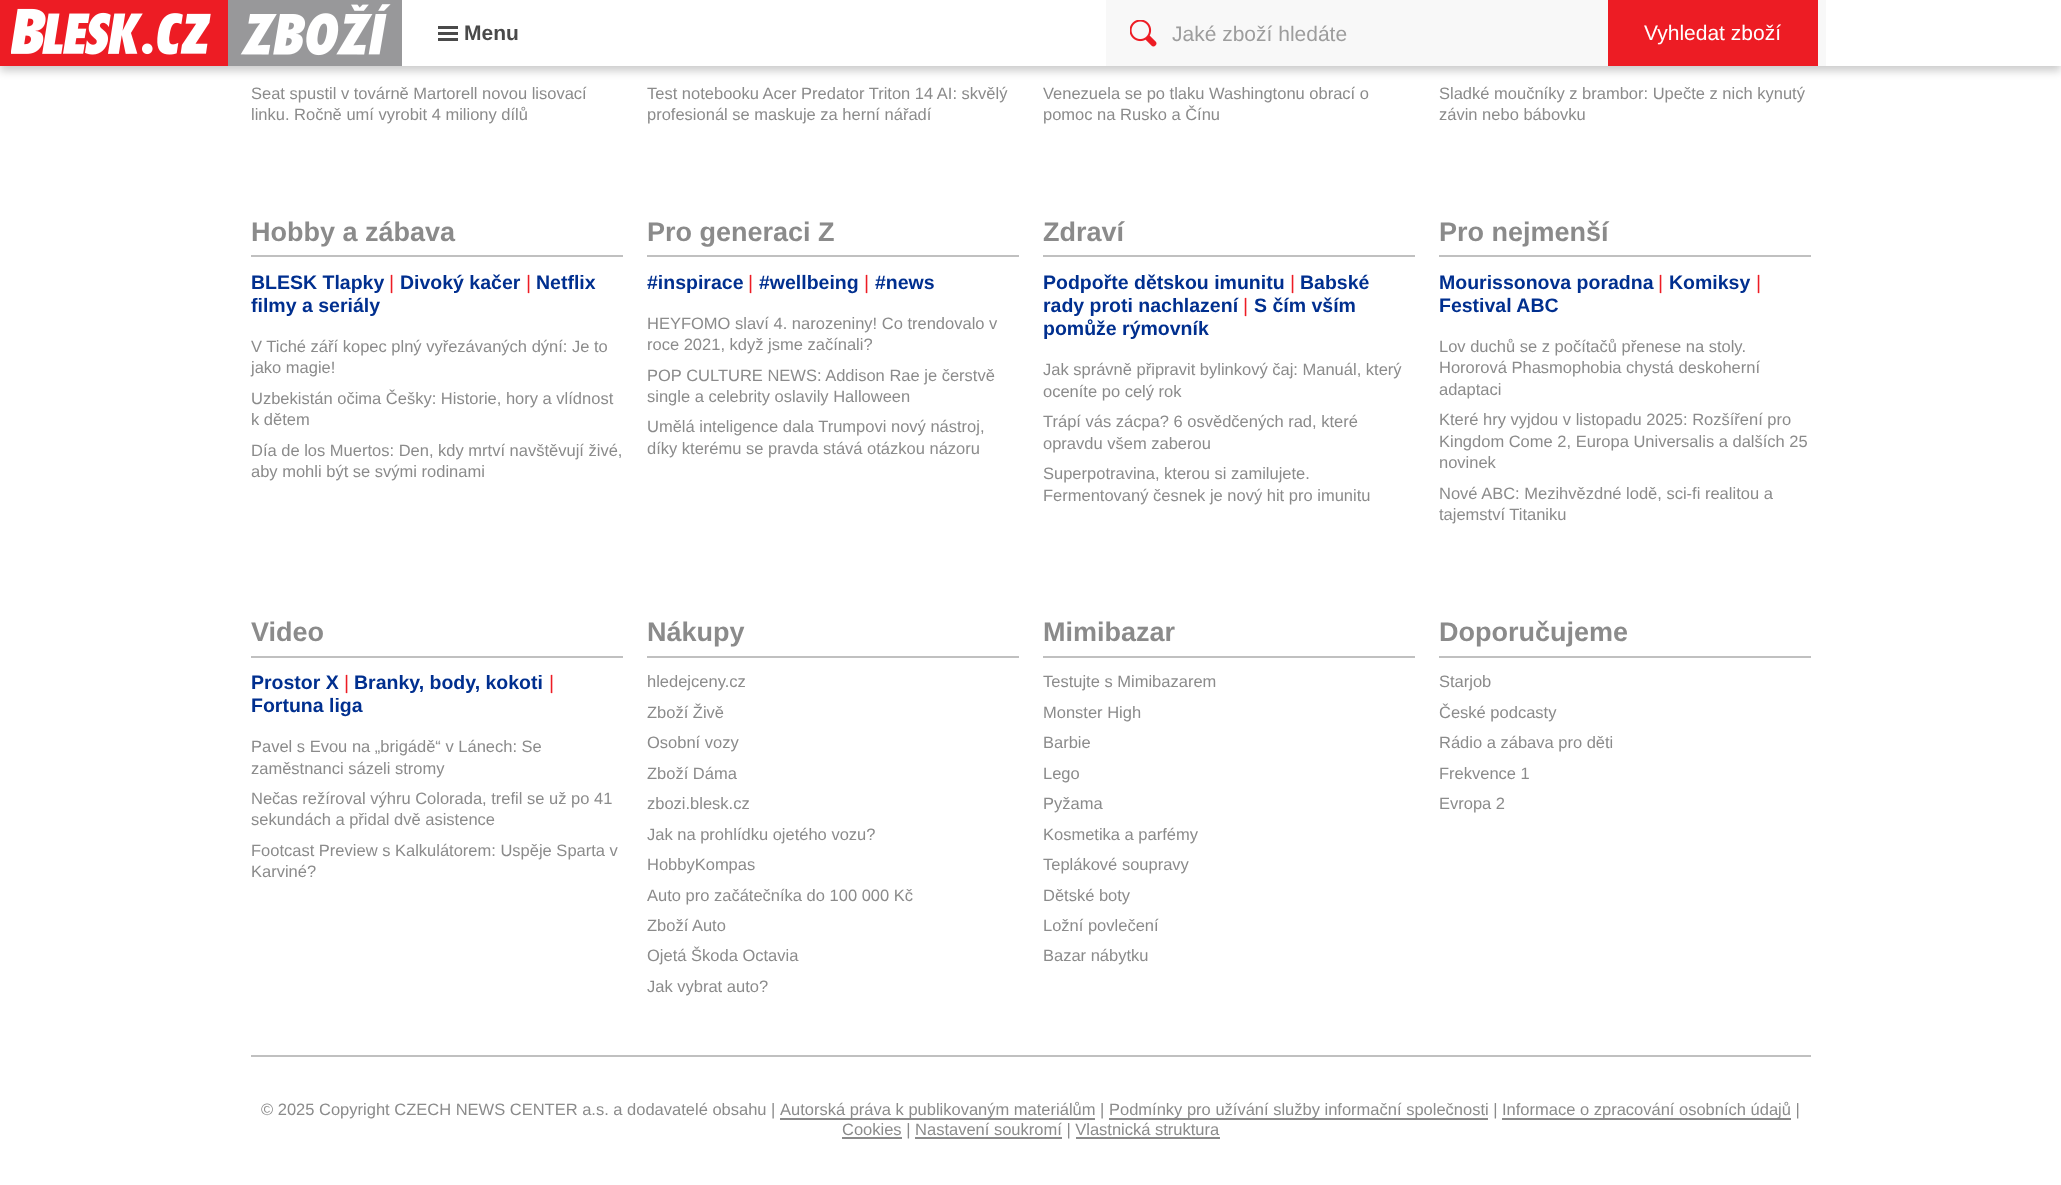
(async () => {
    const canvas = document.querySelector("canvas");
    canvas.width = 2061;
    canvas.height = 1185;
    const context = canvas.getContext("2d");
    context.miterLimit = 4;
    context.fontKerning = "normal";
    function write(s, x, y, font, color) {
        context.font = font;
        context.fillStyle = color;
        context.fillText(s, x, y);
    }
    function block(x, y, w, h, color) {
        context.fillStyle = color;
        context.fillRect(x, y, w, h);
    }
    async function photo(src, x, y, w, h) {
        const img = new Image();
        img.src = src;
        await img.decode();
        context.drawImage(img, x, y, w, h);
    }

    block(0, 0, 2061, 1185, "rgb(255, 255, 255)");
    context.fillStyle = "rgba(0, 0, 0, 0.2)";
    context.filter = "blur(4.5px)";
    context.beginPath();
    context.rect(0, 5, 2061, 66);
    context.fill();
    context.filter = "none";
    block(402, 0, 1659, 66, "rgb(255, 255, 255)");
    block(0, 0, 228, 66, "rgb(237, 28, 36)");
    await photo("media/1.png", 11, 0, 391, 66);
    block(438, 38, 20, 3, "rgb(74, 74, 74)");
    block(438, 26, 20, 3, "rgb(74, 74, 74)");
    block(438, 32, 20, 3, "rgb(74, 74, 74)");
    write("Menu", 464, 40, "bold 21px Liberation Sans", "rgb(74, 74, 74)");
    block(1106, 0, 720, 66, "rgb(248, 248, 248)");
    await photo("media/2.png", 1130, 20, 27, 27);
    write("Jaké zboží hledáte", 1172, 41, "21px Liberation Sans", "rgb(157, 157, 157)");
    block(1608, 0, 210, 66, "rgb(237, 28, 36)");
    write("Vyhledat zboží", 1644, 40, "21px Liberation Sans", "rgb(255, 255, 255)");
    write("Seat spustil v továrně Martorell novou lisovací", 251, 99, "16.5px Liberation Sans", "rgb(139, 139, 139)");
    write("linku. Ročně umí vyrobit 4 miliony dílů", 251, 120, "16.5px Liberation Sans", "rgb(139, 139, 139)");
    write("Test notebooku Acer Predator Triton 14 AI: skvělý", 647, 99, "16.5px Liberation Sans", "rgb(139, 139, 139)");
    write("profesionál se maskuje za herní nářadí", 647, 120, "16.5px Liberation Sans", "rgb(139, 139, 139)");
    write("Venezuela se po tlaku Washingtonu obrací o", 1043, 99, "16.5px Liberation Sans", "rgb(139, 139, 139)");
    write("pomoc na Rusko a Čínu", 1043, 120, "16.5px Liberation Sans", "rgb(139, 139, 139)");
    write("Sladké moučníky z brambor: Upečte z nich kynutý", 1439, 99, "16.5px Liberation Sans", "rgb(139, 139, 139)");
    write("závin nebo bábovku", 1439, 120, "16.5px Liberation Sans", "rgb(139, 139, 139)");
    block(251, 255, 372, 2, "rgb(192, 192, 192)");
    write("Hobby a zábava", 251, 241, "bold 27px Liberation Sans", "rgb(139, 139, 139)");
    write("BLESK Tlapky", 251, 289, "bold 19.5px Liberation Sans", "rgb(0, 47, 143)");
    write("|", 389, 289, "19.5px Liberation Sans", "rgb(237, 28, 36)");
    write("Divoký kačer", 400, 289, "bold 19.5px Liberation Sans", "rgb(0, 47, 143)");
    write("|", 526, 289, "19.5px Liberation Sans", "rgb(237, 28, 36)");
    write("Netflix", 536, 289, "bold 19.5px Liberation Sans", "rgb(0, 47, 143)");
    write("filmy a seriály", 251, 312, "bold 19.5px Liberation Sans", "rgb(0, 47, 143)");
    write("V Tiché září kopec plný vyřezávaných dýní: Je to", 251, 352, "16.5px Liberation Sans", "rgb(139, 139, 139)");
    write("jako magie!", 251, 373, "16.5px Liberation Sans", "rgb(139, 139, 139)");
    write("Uzbekistán očima Češky: Historie, hory a vlídnost", 251, 404, "16.5px Liberation Sans", "rgb(139, 139, 139)");
    write("k dětem", 251, 425, "16.5px Liberation Sans", "rgb(139, 139, 139)");
    write("Día de los Muertos: Den, kdy mrtví navštěvují živé,", 251, 456, "16.5px Liberation Sans", "rgb(139, 139, 139)");
    write("aby mohli být se svými rodinami", 251, 477, "16.5px Liberation Sans", "rgb(139, 139, 139)");
    block(647, 255, 372, 2, "rgb(192, 192, 192)");
    write("Pro generaci Z", 647, 241, "bold 27px Liberation Sans", "rgb(139, 139, 139)");
    write("#inspirace", 647, 289, "bold 19.5px Liberation Sans", "rgb(0, 47, 143)");
    write("|", 748, 289, "19.5px Liberation Sans", "rgb(237, 28, 36)");
    write("#wellbeing", 759, 289, "bold 19.5px Liberation Sans", "rgb(0, 47, 143)");
    write("|", 864, 289, "19.5px Liberation Sans", "rgb(237, 28, 36)");
    write("#news", 875, 289, "bold 19.5px Liberation Sans", "rgb(0, 47, 143)");
    write("HEYFOMO slaví 4. narozeniny! Co trendovalo v", 647, 329, "16.5px Liberation Sans", "rgb(139, 139, 139)");
    write("roce 2021, když jsme začínali?", 647, 350, "16.5px Liberation Sans", "rgb(139, 139, 139)");
    write("POP CULTURE NEWS: Addison Rae je čerstvě", 647, 381, "16.5px Liberation Sans", "rgb(139, 139, 139)");
    write("single a celebrity oslavily Halloween", 647, 402, "16.5px Liberation Sans", "rgb(139, 139, 139)");
    write("Umělá inteligence dala Trumpovi nový nástroj,", 647, 432, "16.5px Liberation Sans", "rgb(139, 139, 139)");
    write("díky kterému se pravda stává otázkou názoru", 647, 454, "16.5px Liberation Sans", "rgb(139, 139, 139)");
    block(1043, 255, 372, 2, "rgb(192, 192, 192)");
    write("Zdraví", 1043, 241, "bold 27px Liberation Sans", "rgb(139, 139, 139)");
    write("Podpořte dětskou imunitu", 1043, 289, "bold 19.5px Liberation Sans", "rgb(0, 47, 143)");
    write("|", 1290, 289, "19.5px Liberation Sans", "rgb(237, 28, 36)");
    write("Babské", 1300, 289, "bold 19.5px Liberation Sans", "rgb(0, 47, 143)");
    write("rady proti nachlazení", 1043, 312, "bold 19.5px Liberation Sans", "rgb(0, 47, 143)");
    write("|", 1243, 312, "19.5px Liberation Sans", "rgb(237, 28, 36)");
    write("S čím vším", 1254, 312, "bold 19.5px Liberation Sans", "rgb(0, 47, 143)");
    write("pomůže rýmovník", 1043, 335, "bold 19.5px Liberation Sans", "rgb(0, 47, 143)");
    write("Jak správně připravit bylinkový čaj: Manuál, který", 1043, 375, "16.5px Liberation Sans", "rgb(139, 139, 139)");
    write("oceníte po celý rok", 1043, 397, "16.5px Liberation Sans", "rgb(139, 139, 139)");
    write("Trápí vás zácpa? 6 osvědčených rad, které", 1043, 427, "16.5px Liberation Sans", "rgb(139, 139, 139)");
    write("opravdu všem zaberou", 1043, 449, "16.5px Liberation Sans", "rgb(139, 139, 139)");
    write("Superpotravina, kterou si zamilujete.", 1043, 479, "16.5px Liberation Sans", "rgb(139, 139, 139)");
    write("Fermentovaný česnek je nový hit pro imunitu", 1043, 501, "16.5px Liberation Sans", "rgb(139, 139, 139)");
    block(1439, 255, 372, 2, "rgb(192, 192, 192)");
    write("Pro nejmenší", 1439, 241, "bold 27px Liberation Sans", "rgb(139, 139, 139)");
    write("Mourissonova poradna", 1439, 289, "bold 19.5px Liberation Sans", "rgb(0, 47, 143)");
    write("|", 1658, 289, "19.5px Liberation Sans", "rgb(237, 28, 36)");
    write("Komiksy", 1669, 289, "bold 19.5px Liberation Sans", "rgb(0, 47, 143)");
    write("|", 1756, 289, "19.5px Liberation Sans", "rgb(237, 28, 36)");
    write("Festival ABC", 1439, 312, "bold 19.5px Liberation Sans", "rgb(0, 47, 143)");
    write("Lov duchů se z počítačů přenese na stoly.", 1439, 352, "16.5px Liberation Sans", "rgb(139, 139, 139)");
    write("Hororová Phasmophobia chystá deskoherní", 1439, 373, "16.5px Liberation Sans", "rgb(139, 139, 139)");
    write("adaptaci", 1439, 395, "16.5px Liberation Sans", "rgb(139, 139, 139)");
    write("Které hry vyjdou v listopadu 2025: Rozšíření pro", 1439, 425, "16.5px Liberation Sans", "rgb(139, 139, 139)");
    write("Kingdom Come 2, Europa Universalis a dalších 25", 1439, 447, "16.5px Liberation Sans", "rgb(139, 139, 139)");
    write("novinek", 1439, 468, "16.5px Liberation Sans", "rgb(139, 139, 139)");
    write("Nové ABC: Mezihvězdné lodě, sci-fi realitou a", 1439, 499, "16.5px Liberation Sans", "rgb(139, 139, 139)");
    write("tajemství Titaniku", 1439, 520, "16.5px Liberation Sans", "rgb(139, 139, 139)");
    block(251, 656, 372, 2, "rgb(192, 192, 192)");
    write("Video", 251, 641, "bold 27px Liberation Sans", "rgb(139, 139, 139)");
    write("Prostor X", 251, 689, "bold 19.5px Liberation Sans", "rgb(0, 47, 143)");
    write("|", 344, 689, "19.5px Liberation Sans", "rgb(237, 28, 36)");
    write("Branky, body, kokoti", 354, 689, "bold 19.5px Liberation Sans", "rgb(0, 47, 143)");
    write("|", 549, 689, "19.5px Liberation Sans", "rgb(237, 28, 36)");
    write("Fortuna liga", 251, 712, "bold 19.5px Liberation Sans", "rgb(0, 47, 143)");
    write("Pavel s Evou na „brigádě“ v Lánech: Se", 251, 752, "16.5px Liberation Sans", "rgb(139, 139, 139)");
    write("zaměstnanci sázeli stromy", 251, 774, "16.5px Liberation Sans", "rgb(139, 139, 139)");
    write("Nečas režíroval výhru Colorada, trefil se už po 41", 251, 804, "16.5px Liberation Sans", "rgb(139, 139, 139)");
    write("sekundách a přidal dvě asistence", 251, 825, "16.5px Liberation Sans", "rgb(139, 139, 139)");
    write("Footcast Preview s Kalkulátorem: Uspěje Sparta v", 251, 856, "16.5px Liberation Sans", "rgb(139, 139, 139)");
    write("Karviné?", 251, 877, "16.5px Liberation Sans", "rgb(139, 139, 139)");
    block(647, 656, 372, 2, "rgb(192, 192, 192)");
    write("Nákupy", 647, 641, "bold 27px Liberation Sans", "rgb(139, 139, 139)");
    write("hledejceny.cz", 647, 687, "16.5px Liberation Sans", "rgb(139, 139, 139)");
    write("Zboží Živě", 647, 718, "16.5px Liberation Sans", "rgb(139, 139, 139)");
    write("Osobní vozy", 647, 748, "16.5px Liberation Sans", "rgb(139, 139, 139)");
    write("Zboží Dáma", 647, 779, "16.5px Liberation Sans", "rgb(139, 139, 139)");
    write("zbozi.blesk.cz", 647, 809, "16.5px Liberation Sans", "rgb(139, 139, 139)");
    write("Jak na prohlídku ojetého vozu?", 647, 840, "16.5px Liberation Sans", "rgb(139, 139, 139)");
    write("HobbyKompas", 647, 870, "16.5px Liberation Sans", "rgb(139, 139, 139)");
    write("Auto pro začátečníka do 100 000 Kč", 647, 901, "16.5px Liberation Sans", "rgb(139, 139, 139)");
    write("Zboží Auto", 647, 931, "16.5px Liberation Sans", "rgb(139, 139, 139)");
    write("Ojetá Škoda Octavia", 647, 961, "16.5px Liberation Sans", "rgb(139, 139, 139)");
    write("Jak vybrat auto?", 647, 992, "16.5px Liberation Sans", "rgb(139, 139, 139)");
    block(1043, 656, 372, 2, "rgb(192, 192, 192)");
    write("Mimibazar", 1043, 641, "bold 27px Liberation Sans", "rgb(139, 139, 139)");
    write("Testujte s Mimibazarem", 1043, 687, "16.5px Liberation Sans", "rgb(139, 139, 139)");
    write("Monster High", 1043, 718, "16.5px Liberation Sans", "rgb(139, 139, 139)");
    write("Barbie", 1043, 748, "16.5px Liberation Sans", "rgb(139, 139, 139)");
    write("Lego", 1043, 779, "16.5px Liberation Sans", "rgb(139, 139, 139)");
    write("Pyžama", 1043, 809, "16.5px Liberation Sans", "rgb(139, 139, 139)");
    write("Kosmetika a parfémy", 1043, 840, "16.5px Liberation Sans", "rgb(139, 139, 139)");
    write("Teplákové soupravy", 1043, 870, "16.5px Liberation Sans", "rgb(139, 139, 139)");
    write("Dětské boty", 1043, 901, "16.5px Liberation Sans", "rgb(139, 139, 139)");
    write("Ložní povlečení", 1043, 931, "16.5px Liberation Sans", "rgb(139, 139, 139)");
    write("Bazar nábytku", 1043, 961, "16.5px Liberation Sans", "rgb(139, 139, 139)");
    block(1439, 656, 372, 2, "rgb(192, 192, 192)");
    write("Doporučujeme", 1439, 641, "bold 27px Liberation Sans", "rgb(139, 139, 139)");
    write("Starjob", 1439, 687, "16.5px Liberation Sans", "rgb(139, 139, 139)");
    write("České podcasty", 1439, 718, "16.5px Liberation Sans", "rgb(139, 139, 139)");
    write("Rádio a zábava pro děti", 1439, 748, "16.5px Liberation Sans", "rgb(139, 139, 139)");
    write("Frekvence 1", 1439, 779, "16.5px Liberation Sans", "rgb(139, 139, 139)");
    write("Evropa 2", 1439, 809, "16.5px Liberation Sans", "rgb(139, 139, 139)");
    block(251, 1055, 1560, 2, "rgb(192, 192, 192)");
    write("© 2025 Copyright CZECH NEWS CENTER a.s. a dodavatelé obsahu", 261, 1115, "16.5px Liberation Sans", "rgb(139, 139, 139)");
    write("|", 771, 1115, "16.5px Liberation Sans", "rgb(139, 139, 139)");
    block(780, 1118, 315, 2, "rgb(139, 139, 139)");
    write("Autorská práva k publikovaným materiálům |", 780, 1115, "16.5px Liberation Sans", "rgb(139, 139, 139)");
    block(1109, 1118, 379, 2, "rgb(139, 139, 139)");
    write("Podmínky pro užívání služby informační společnosti |", 1109, 1115, "16.5px Liberation Sans", "rgb(139, 139, 139)");
    block(1502, 1118, 289, 2, "rgb(139, 139, 139)");
    write("Informace o zpracování osobních údajů |", 1502, 1115, "16.5px Liberation Sans", "rgb(139, 139, 139)");
    block(842, 1137, 60, 2, "rgb(139, 139, 139)");
    write("Cookies | Nastavení soukromí | Vlastnická struktura", 842, 1135, "16.5px Liberation Sans", "rgb(139, 139, 139)");
    block(915, 1137, 147, 2, "rgb(139, 139, 139)");
    block(1076, 1137, 144, 2, "rgb(139, 139, 139)");
})();
